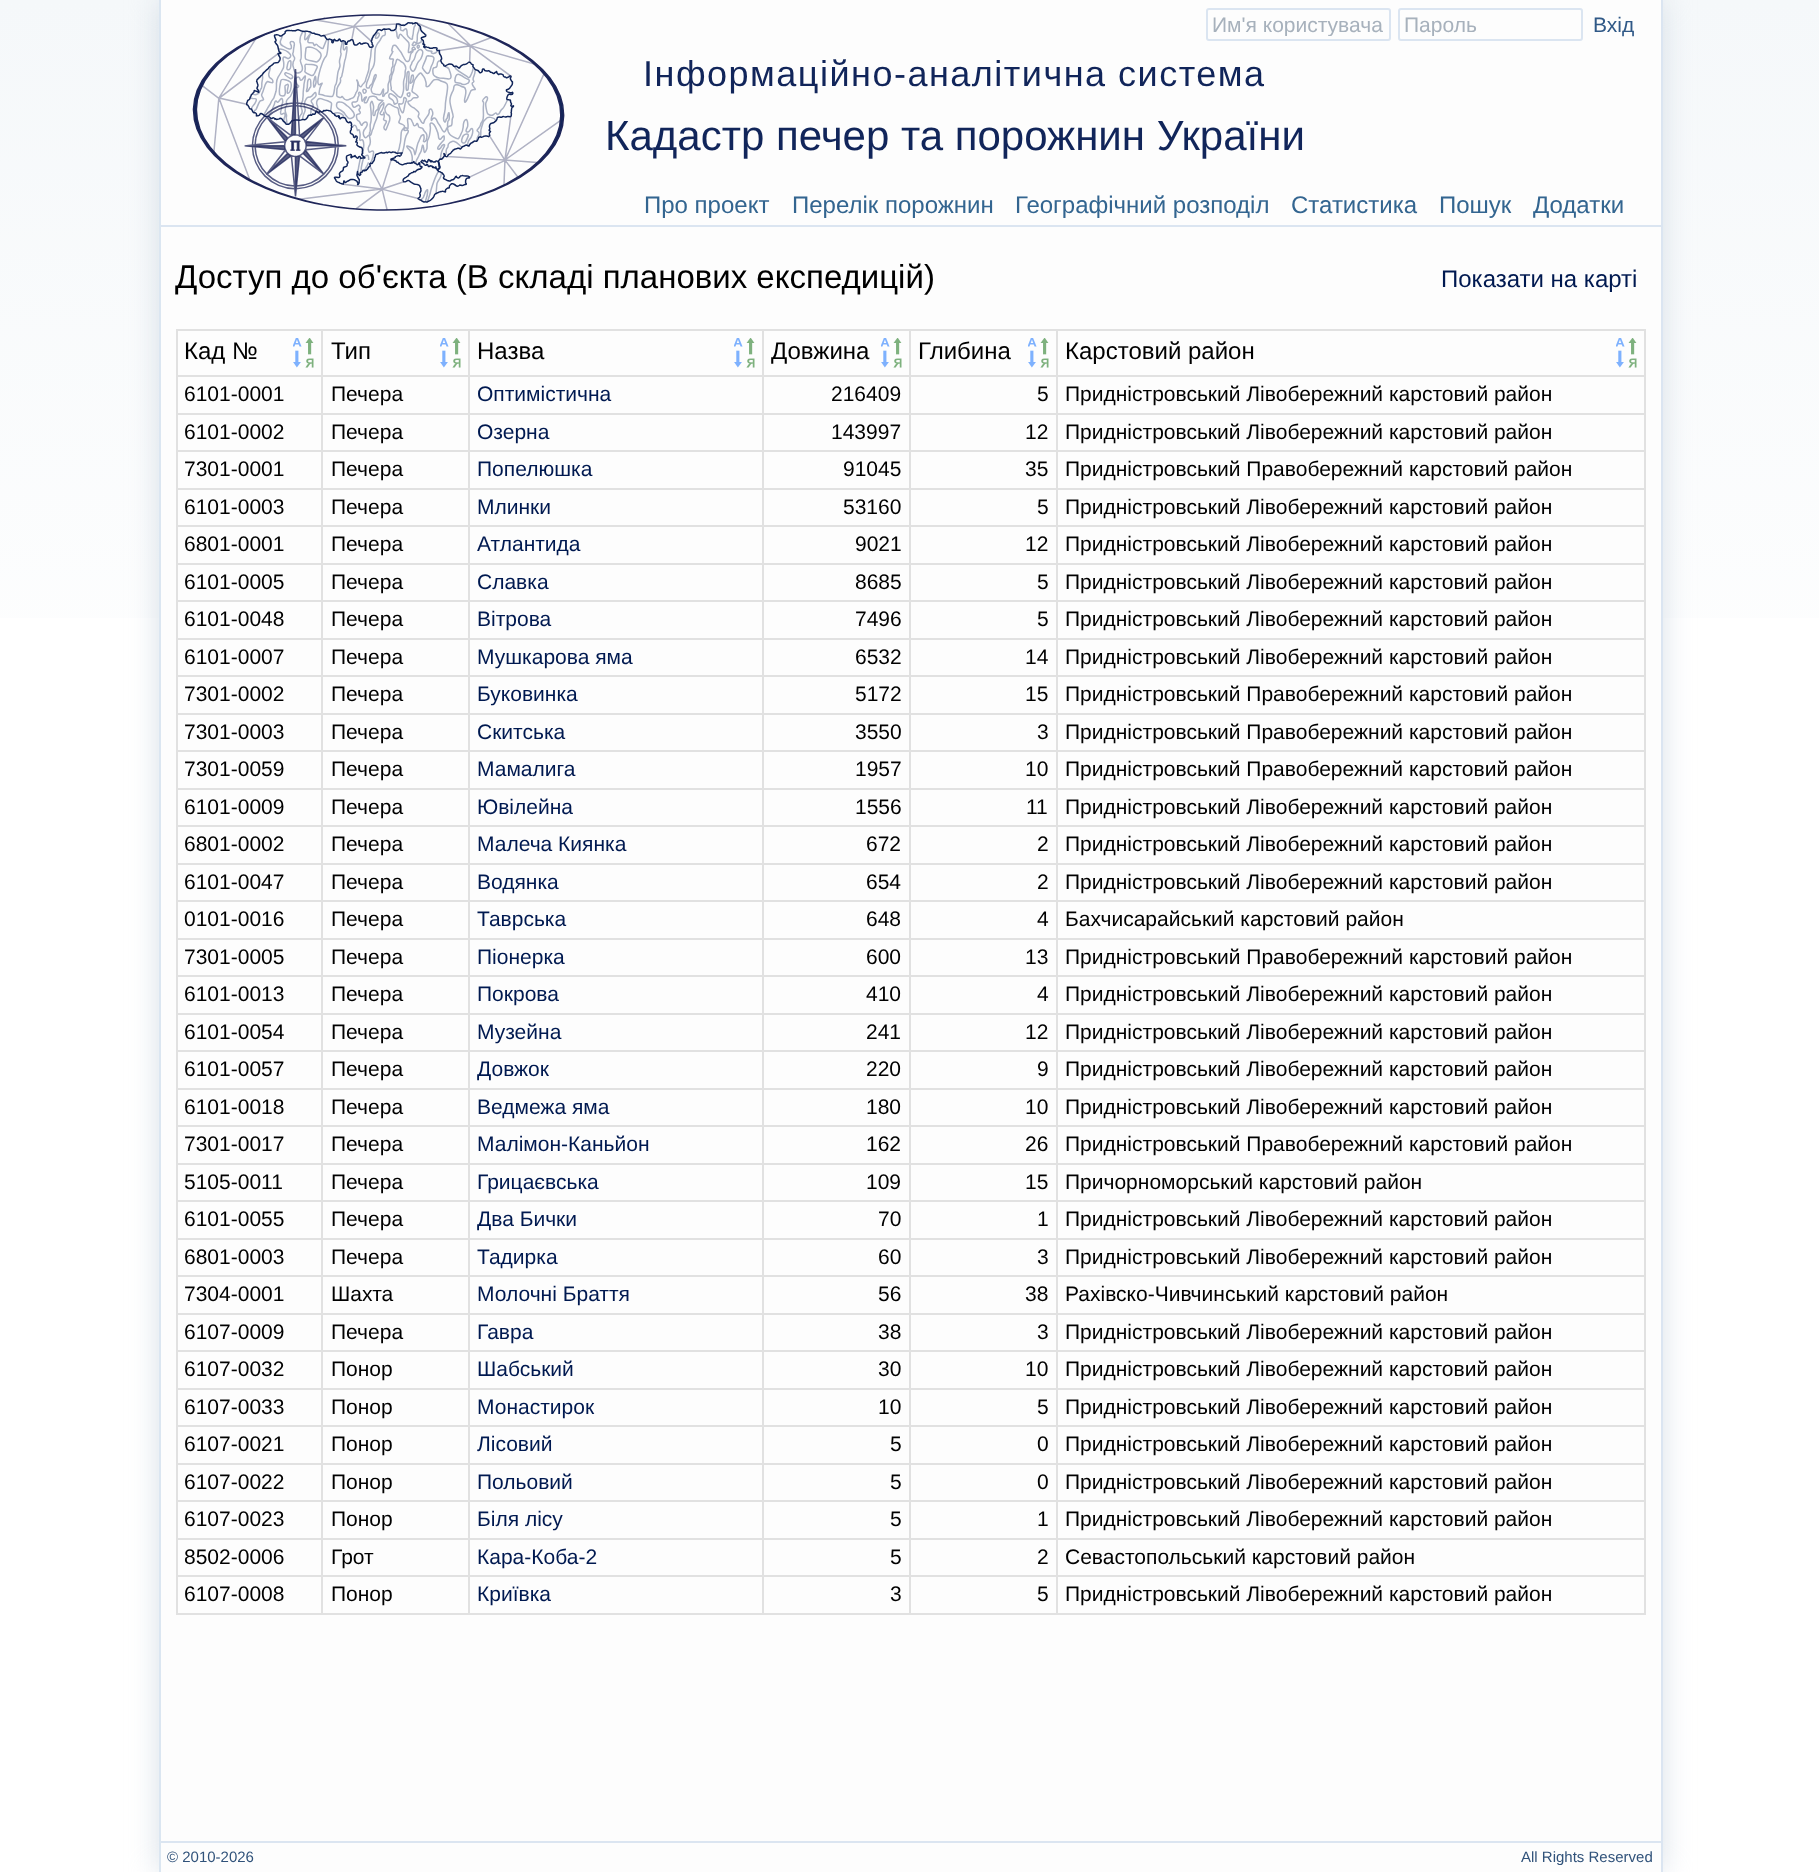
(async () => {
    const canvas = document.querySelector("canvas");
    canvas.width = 1819;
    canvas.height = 1872;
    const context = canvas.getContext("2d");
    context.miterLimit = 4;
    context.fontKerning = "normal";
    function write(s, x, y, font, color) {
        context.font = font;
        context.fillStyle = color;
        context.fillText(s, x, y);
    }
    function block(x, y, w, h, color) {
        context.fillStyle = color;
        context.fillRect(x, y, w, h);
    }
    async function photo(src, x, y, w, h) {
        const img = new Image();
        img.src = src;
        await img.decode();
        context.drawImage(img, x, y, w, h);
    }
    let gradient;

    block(0, 0, 1819, 1872, "rgb(255, 255, 255)");
    gradient = context.createLinearGradient(910, 0, 910, 1872);
    gradient.addColorStop(0, "rgb(245, 248, 250)");
    gradient.addColorStop(0.44, "rgb(255, 255, 255)");
    context.fillStyle = gradient;
    context.fillRect(0, 0, 1819, 618);
    context.fillStyle = "rgba(205, 215, 225, 0.8)";
    context.filter = "blur(15px)";
    context.beginPath();
    context.rect(159, 0, 1503, 1872);
    context.fill();
    context.filter = "none";
    block(161, 0, 1500, 1872, "rgb(253, 253, 253)");
    block(1661, 0, 2, 1872, "rgb(219, 229, 241)");
    block(159, 0, 2, 1872, "rgb(219, 230, 241)");
    block(161, 225, 1500, 2, "rgb(219, 229, 241)");
    await photo("media/1.png", 192, 14, 373, 197);
    context.beginPath();
    context.roundRect(1207, 9, 183, 31, 2);
    context.strokeStyle = "rgb(219, 229, 241)";
    context.lineWidth = 2;
    context.stroke();
    context.save();
    context.beginPath();
    context.rect(1212, 12, 173, 24);
    context.clip();
    write("Им'я користувача", 1212, 32, "21px Liberation Sans", "rgb(167, 177, 188)");
    context.restore();
    context.beginPath();
    context.roundRect(1399, 9, 183, 31, 2);
    context.stroke();
    context.save();
    context.beginPath();
    context.rect(1404, 12, 173, 24);
    context.clip();
    write("Пароль", 1404, 32, "21px Liberation Sans", "rgb(167, 177, 188)");
    context.restore();
    write("Вхід", 1593, 32, "21px Liberation Sans", "rgb(48, 89, 135)");
    context.letterSpacing = "1.5px";
    write("Інформаційно-аналітична система", 643, 86, "36px Liberation Sans", "rgb(17, 37, 90)");
    context.letterSpacing = "0px";
    write("Кадастр печер та порожнин України", 605, 150, "42px Liberation Sans", "rgb(17, 37, 90)");
    write("Про проект", 644, 213, "24px Liberation Sans", "rgb(51, 101, 144)");
    write("Перелік порожнин", 792, 213, "24px Liberation Sans", "rgb(51, 101, 144)");
    write("Географічний розподіл", 1015, 213, "24px Liberation Sans", "rgb(51, 101, 144)");
    write("Статистика", 1291, 213, "24px Liberation Sans", "rgb(51, 101, 144)");
    write("Пошук", 1439, 213, "24px Liberation Sans", "rgb(51, 101, 144)");
    write("Додатки", 1533, 213, "24px Liberation Sans", "rgb(51, 101, 144)");
    write("Доступ до об'єкта (В складі планових експедицій)", 175, 288, "33px Liberation Sans", "rgb(0, 0, 0)");
    write("Показати на карті", 1441, 287, "24px Liberation Sans", "rgb(0, 25, 80)");
    block(1056, 329, 590, 2, "rgb(225, 225, 225)");
    block(1056, 375, 590, 2, "rgb(225, 225, 225)");
    block(1056, 413, 590, 2, "rgb(225, 225, 225)");
    block(1056, 450, 590, 2, "rgb(225, 225, 225)");
    block(1056, 488, 590, 2, "rgb(225, 225, 225)");
    block(1056, 525, 590, 2, "rgb(225, 225, 225)");
    block(1056, 563, 590, 2, "rgb(225, 225, 225)");
    block(1056, 600, 590, 2, "rgb(225, 225, 225)");
    block(1056, 638, 590, 2, "rgb(225, 225, 225)");
    block(1056, 675, 590, 2, "rgb(225, 225, 225)");
    block(1056, 713, 590, 2, "rgb(225, 225, 225)");
    block(1056, 750, 590, 2, "rgb(225, 225, 225)");
    block(1056, 788, 590, 2, "rgb(225, 225, 225)");
    block(1056, 825, 590, 2, "rgb(225, 225, 225)");
    block(1056, 863, 590, 2, "rgb(225, 225, 225)");
    block(1056, 900, 590, 2, "rgb(225, 225, 225)");
    block(1056, 938, 590, 2, "rgb(225, 225, 225)");
    block(1056, 975, 590, 2, "rgb(225, 225, 225)");
    block(1056, 1013, 590, 2, "rgb(225, 225, 225)");
    block(1056, 1050, 590, 2, "rgb(225, 225, 225)");
    block(1056, 1088, 590, 2, "rgb(225, 225, 225)");
    block(1056, 1125, 590, 2, "rgb(225, 225, 225)");
    block(1056, 1163, 590, 2, "rgb(225, 225, 225)");
    block(1056, 1200, 590, 2, "rgb(225, 225, 225)");
    block(1056, 1238, 590, 2, "rgb(225, 225, 225)");
    block(1056, 1275, 590, 2, "rgb(225, 225, 225)");
    block(1056, 1313, 590, 2, "rgb(225, 225, 225)");
    block(1056, 1350, 590, 2, "rgb(225, 225, 225)");
    block(1056, 1388, 590, 2, "rgb(225, 225, 225)");
    block(1056, 1425, 590, 2, "rgb(225, 225, 225)");
    block(1056, 1463, 590, 2, "rgb(225, 225, 225)");
    block(1056, 1500, 590, 2, "rgb(225, 225, 225)");
    block(1056, 1538, 590, 2, "rgb(225, 225, 225)");
    block(1056, 1575, 590, 2, "rgb(225, 225, 225)");
    block(1644, 1575, 2, 39, "rgb(225, 225, 225)");
    block(1056, 1613, 590, 2, "rgb(225, 225, 225)");
    block(1056, 1575, 2, 39, "rgb(225, 225, 225)");
    block(909, 1575, 149, 2, "rgb(225, 225, 225)");
    block(1056, 1538, 2, 39, "rgb(225, 225, 225)");
    block(909, 1538, 149, 2, "rgb(225, 225, 225)");
    block(1056, 1500, 2, 39, "rgb(225, 225, 225)");
    block(909, 1500, 149, 2, "rgb(225, 225, 225)");
    block(1056, 1463, 2, 39, "rgb(225, 225, 225)");
    block(909, 1463, 149, 2, "rgb(225, 225, 225)");
    block(1056, 1425, 2, 39, "rgb(225, 225, 225)");
    block(909, 1425, 149, 2, "rgb(225, 225, 225)");
    block(1056, 1388, 2, 39, "rgb(225, 225, 225)");
    block(909, 1388, 149, 2, "rgb(225, 225, 225)");
    block(1056, 1350, 2, 39, "rgb(225, 225, 225)");
    block(909, 1350, 149, 2, "rgb(225, 225, 225)");
    block(1056, 1313, 2, 39, "rgb(225, 225, 225)");
    block(909, 1313, 149, 2, "rgb(225, 225, 225)");
    block(1056, 1275, 2, 39, "rgb(225, 225, 225)");
    block(909, 1275, 149, 2, "rgb(225, 225, 225)");
    block(1056, 1238, 2, 39, "rgb(225, 225, 225)");
    block(909, 1238, 149, 2, "rgb(225, 225, 225)");
    block(1056, 1200, 2, 39, "rgb(225, 225, 225)");
    block(909, 1200, 149, 2, "rgb(225, 225, 225)");
    block(1056, 1163, 2, 39, "rgb(225, 225, 225)");
    block(909, 1163, 149, 2, "rgb(225, 225, 225)");
    block(1056, 1125, 2, 39, "rgb(225, 225, 225)");
    block(909, 1125, 149, 2, "rgb(225, 225, 225)");
    block(1056, 1088, 2, 39, "rgb(225, 225, 225)");
    block(909, 1088, 149, 2, "rgb(225, 225, 225)");
    block(1056, 1050, 2, 39, "rgb(225, 225, 225)");
    block(909, 1050, 149, 2, "rgb(225, 225, 225)");
    block(1056, 1013, 2, 39, "rgb(225, 225, 225)");
    block(909, 1013, 149, 2, "rgb(225, 225, 225)");
    block(1056, 975, 2, 39, "rgb(225, 225, 225)");
    block(909, 975, 149, 2, "rgb(225, 225, 225)");
    block(1056, 938, 2, 39, "rgb(225, 225, 225)");
    block(909, 938, 149, 2, "rgb(225, 225, 225)");
    block(1056, 900, 2, 39, "rgb(225, 225, 225)");
    block(909, 900, 149, 2, "rgb(225, 225, 225)");
    block(1056, 863, 2, 39, "rgb(225, 225, 225)");
    block(909, 863, 149, 2, "rgb(225, 225, 225)");
    block(1056, 825, 2, 39, "rgb(225, 225, 225)");
    block(909, 825, 149, 2, "rgb(225, 225, 225)");
    block(1056, 788, 2, 39, "rgb(225, 225, 225)");
    block(909, 788, 149, 2, "rgb(225, 225, 225)");
    block(1056, 750, 2, 39, "rgb(225, 225, 225)");
    block(909, 750, 149, 2, "rgb(225, 225, 225)");
    block(1056, 713, 2, 39, "rgb(225, 225, 225)");
    block(909, 713, 149, 2, "rgb(225, 225, 225)");
    block(1056, 675, 2, 39, "rgb(225, 225, 225)");
    block(909, 675, 149, 2, "rgb(225, 225, 225)");
    block(1056, 638, 2, 39, "rgb(225, 225, 225)");
    block(909, 638, 149, 2, "rgb(225, 225, 225)");
    block(1056, 600, 2, 39, "rgb(225, 225, 225)");
    block(909, 600, 149, 2, "rgb(225, 225, 225)");
    block(1056, 563, 2, 39, "rgb(225, 225, 225)");
    block(909, 563, 149, 2, "rgb(225, 225, 225)");
    block(1056, 525, 2, 39, "rgb(225, 225, 225)");
    block(909, 525, 149, 2, "rgb(225, 225, 225)");
    block(1056, 488, 2, 39, "rgb(225, 225, 225)");
    block(909, 488, 149, 2, "rgb(225, 225, 225)");
    block(1056, 450, 2, 39, "rgb(225, 225, 225)");
    block(909, 450, 149, 2, "rgb(225, 225, 225)");
    block(1056, 413, 2, 39, "rgb(225, 225, 225)");
    block(909, 413, 149, 2, "rgb(225, 225, 225)");
    block(1056, 375, 2, 39, "rgb(225, 225, 225)");
    block(909, 375, 149, 2, "rgb(225, 225, 225)");
    block(1056, 329, 2, 48, "rgb(225, 225, 225)");
    block(909, 329, 149, 2, "rgb(225, 225, 225)");
    block(909, 1613, 149, 2, "rgb(225, 225, 225)");
    block(909, 1575, 2, 39, "rgb(225, 225, 225)");
    block(762, 1575, 149, 2, "rgb(225, 225, 225)");
    block(909, 1538, 2, 39, "rgb(225, 225, 225)");
    block(762, 1538, 149, 2, "rgb(225, 225, 225)");
    block(909, 1500, 2, 39, "rgb(225, 225, 225)");
    block(762, 1500, 149, 2, "rgb(225, 225, 225)");
    block(909, 1463, 2, 39, "rgb(225, 225, 225)");
    block(762, 1463, 149, 2, "rgb(225, 225, 225)");
    block(909, 1425, 2, 39, "rgb(225, 225, 225)");
    block(762, 1425, 149, 2, "rgb(225, 225, 225)");
    block(909, 1388, 2, 39, "rgb(225, 225, 225)");
    block(762, 1388, 149, 2, "rgb(225, 225, 225)");
    block(909, 1350, 2, 39, "rgb(225, 225, 225)");
    block(762, 1350, 149, 2, "rgb(225, 225, 225)");
    block(909, 1313, 2, 39, "rgb(225, 225, 225)");
    block(762, 1313, 149, 2, "rgb(225, 225, 225)");
    block(909, 1275, 2, 39, "rgb(225, 225, 225)");
    block(762, 1275, 149, 2, "rgb(225, 225, 225)");
    block(909, 1238, 2, 39, "rgb(225, 225, 225)");
    block(762, 1238, 149, 2, "rgb(225, 225, 225)");
    block(909, 1200, 2, 39, "rgb(225, 225, 225)");
    block(762, 1200, 149, 2, "rgb(225, 225, 225)");
    block(909, 1163, 2, 39, "rgb(225, 225, 225)");
    block(762, 1163, 149, 2, "rgb(225, 225, 225)");
    block(909, 1125, 2, 39, "rgb(225, 225, 225)");
    block(762, 1125, 149, 2, "rgb(225, 225, 225)");
    block(909, 1088, 2, 39, "rgb(225, 225, 225)");
    block(762, 1088, 149, 2, "rgb(225, 225, 225)");
    block(909, 1050, 2, 39, "rgb(225, 225, 225)");
    block(762, 1050, 149, 2, "rgb(225, 225, 225)");
    block(909, 1013, 2, 39, "rgb(225, 225, 225)");
    block(762, 1013, 149, 2, "rgb(225, 225, 225)");
    block(909, 975, 2, 39, "rgb(225, 225, 225)");
    block(762, 975, 149, 2, "rgb(225, 225, 225)");
    block(909, 938, 2, 39, "rgb(225, 225, 225)");
    block(762, 938, 149, 2, "rgb(225, 225, 225)");
    block(909, 900, 2, 39, "rgb(225, 225, 225)");
    block(762, 900, 149, 2, "rgb(225, 225, 225)");
    block(909, 863, 2, 39, "rgb(225, 225, 225)");
    block(762, 863, 149, 2, "rgb(225, 225, 225)");
    block(909, 825, 2, 39, "rgb(225, 225, 225)");
    block(762, 825, 149, 2, "rgb(225, 225, 225)");
    block(909, 788, 2, 39, "rgb(225, 225, 225)");
    block(762, 788, 149, 2, "rgb(225, 225, 225)");
    block(909, 750, 2, 39, "rgb(225, 225, 225)");
    block(762, 750, 149, 2, "rgb(225, 225, 225)");
    block(909, 713, 2, 39, "rgb(225, 225, 225)");
    block(762, 713, 149, 2, "rgb(225, 225, 225)");
    block(909, 675, 2, 39, "rgb(225, 225, 225)");
    block(762, 675, 149, 2, "rgb(225, 225, 225)");
    block(909, 638, 2, 39, "rgb(225, 225, 225)");
    block(762, 638, 149, 2, "rgb(225, 225, 225)");
    block(909, 600, 2, 39, "rgb(225, 225, 225)");
    block(762, 600, 149, 2, "rgb(225, 225, 225)");
    block(909, 563, 2, 39, "rgb(225, 225, 225)");
    block(762, 563, 149, 2, "rgb(225, 225, 225)");
    block(909, 525, 2, 39, "rgb(225, 225, 225)");
    block(762, 525, 149, 2, "rgb(225, 225, 225)");
    block(909, 488, 2, 39, "rgb(225, 225, 225)");
    block(762, 488, 149, 2, "rgb(225, 225, 225)");
    block(909, 450, 2, 39, "rgb(225, 225, 225)");
    block(762, 450, 149, 2, "rgb(225, 225, 225)");
    block(909, 413, 2, 39, "rgb(225, 225, 225)");
    block(762, 413, 149, 2, "rgb(225, 225, 225)");
    block(909, 375, 2, 39, "rgb(225, 225, 225)");
    block(762, 375, 149, 2, "rgb(225, 225, 225)");
    block(909, 329, 2, 48, "rgb(225, 225, 225)");
    block(762, 329, 149, 2, "rgb(225, 225, 225)");
    block(762, 1613, 149, 2, "rgb(225, 225, 225)");
    block(762, 1575, 2, 39, "rgb(225, 225, 225)");
    block(468, 1575, 296, 2, "rgb(225, 225, 225)");
    block(762, 1538, 2, 39, "rgb(225, 225, 225)");
    block(468, 1538, 296, 2, "rgb(225, 225, 225)");
    block(762, 1500, 2, 39, "rgb(225, 225, 225)");
    block(468, 1500, 296, 2, "rgb(225, 225, 225)");
    block(762, 1463, 2, 39, "rgb(225, 225, 225)");
    block(468, 1463, 296, 2, "rgb(225, 225, 225)");
    block(762, 1425, 2, 39, "rgb(225, 225, 225)");
    block(468, 1425, 296, 2, "rgb(225, 225, 225)");
    block(762, 1388, 2, 39, "rgb(225, 225, 225)");
    block(468, 1388, 296, 2, "rgb(225, 225, 225)");
    block(762, 1350, 2, 39, "rgb(225, 225, 225)");
    block(468, 1350, 296, 2, "rgb(225, 225, 225)");
    block(762, 1313, 2, 39, "rgb(225, 225, 225)");
    block(468, 1313, 296, 2, "rgb(225, 225, 225)");
    block(762, 1275, 2, 39, "rgb(225, 225, 225)");
    block(468, 1275, 296, 2, "rgb(225, 225, 225)");
    block(762, 1238, 2, 39, "rgb(225, 225, 225)");
    block(468, 1238, 296, 2, "rgb(225, 225, 225)");
    block(762, 1200, 2, 39, "rgb(225, 225, 225)");
    block(468, 1200, 296, 2, "rgb(225, 225, 225)");
    block(762, 1163, 2, 39, "rgb(225, 225, 225)");
    block(468, 1163, 296, 2, "rgb(225, 225, 225)");
    block(762, 1125, 2, 39, "rgb(225, 225, 225)");
    block(468, 1125, 296, 2, "rgb(225, 225, 225)");
    block(762, 1088, 2, 39, "rgb(225, 225, 225)");
    block(468, 1088, 296, 2, "rgb(225, 225, 225)");
    block(762, 1050, 2, 39, "rgb(225, 225, 225)");
    block(468, 1050, 296, 2, "rgb(225, 225, 225)");
    block(762, 1013, 2, 39, "rgb(225, 225, 225)");
    block(468, 1013, 296, 2, "rgb(225, 225, 225)");
    block(762, 975, 2, 39, "rgb(225, 225, 225)");
    block(468, 975, 296, 2, "rgb(225, 225, 225)");
    block(762, 938, 2, 39, "rgb(225, 225, 225)");
    block(468, 938, 296, 2, "rgb(225, 225, 225)");
    block(762, 900, 2, 39, "rgb(225, 225, 225)");
    block(468, 900, 296, 2, "rgb(225, 225, 225)");
    block(762, 863, 2, 39, "rgb(225, 225, 225)");
    block(468, 863, 296, 2, "rgb(225, 225, 225)");
    block(762, 825, 2, 39, "rgb(225, 225, 225)");
    block(468, 825, 296, 2, "rgb(225, 225, 225)");
    block(762, 788, 2, 39, "rgb(225, 225, 225)");
    block(468, 788, 296, 2, "rgb(225, 225, 225)");
    block(762, 750, 2, 39, "rgb(225, 225, 225)");
    block(468, 750, 296, 2, "rgb(225, 225, 225)");
    block(762, 713, 2, 39, "rgb(225, 225, 225)");
    block(468, 713, 296, 2, "rgb(225, 225, 225)");
    block(762, 675, 2, 39, "rgb(225, 225, 225)");
    block(468, 675, 296, 2, "rgb(225, 225, 225)");
    block(762, 638, 2, 39, "rgb(225, 225, 225)");
    block(468, 638, 296, 2, "rgb(225, 225, 225)");
    block(762, 600, 2, 39, "rgb(225, 225, 225)");
    block(468, 600, 296, 2, "rgb(225, 225, 225)");
    block(762, 563, 2, 39, "rgb(225, 225, 225)");
    block(468, 563, 296, 2, "rgb(225, 225, 225)");
    block(762, 525, 2, 39, "rgb(225, 225, 225)");
    block(468, 525, 296, 2, "rgb(225, 225, 225)");
    block(762, 488, 2, 39, "rgb(225, 225, 225)");
    block(468, 488, 296, 2, "rgb(225, 225, 225)");
    block(762, 450, 2, 39, "rgb(225, 225, 225)");
    block(468, 450, 296, 2, "rgb(225, 225, 225)");
    block(762, 413, 2, 39, "rgb(225, 225, 225)");
    block(468, 413, 296, 2, "rgb(225, 225, 225)");
    block(762, 375, 2, 39, "rgb(225, 225, 225)");
    block(468, 375, 296, 2, "rgb(225, 225, 225)");
    block(762, 329, 2, 48, "rgb(225, 225, 225)");
    block(468, 329, 296, 2, "rgb(225, 225, 225)");
    block(468, 1613, 296, 2, "rgb(225, 225, 225)");
    block(468, 1575, 2, 39, "rgb(225, 225, 225)");
    block(321, 1575, 149, 2, "rgb(225, 225, 225)");
    block(468, 1538, 2, 39, "rgb(225, 225, 225)");
    block(321, 1538, 149, 2, "rgb(225, 225, 225)");
    block(468, 1500, 2, 39, "rgb(225, 225, 225)");
    block(321, 1500, 149, 2, "rgb(225, 225, 225)");
    block(468, 1463, 2, 39, "rgb(225, 225, 225)");
    block(321, 1463, 149, 2, "rgb(225, 225, 225)");
    block(468, 1425, 2, 39, "rgb(225, 225, 225)");
    block(321, 1425, 149, 2, "rgb(225, 225, 225)");
    block(468, 1388, 2, 39, "rgb(225, 225, 225)");
    block(321, 1388, 149, 2, "rgb(225, 225, 225)");
    block(468, 1350, 2, 39, "rgb(225, 225, 225)");
    block(321, 1350, 149, 2, "rgb(225, 225, 225)");
    block(468, 1313, 2, 39, "rgb(225, 225, 225)");
    block(321, 1313, 149, 2, "rgb(225, 225, 225)");
    block(468, 1275, 2, 39, "rgb(225, 225, 225)");
    block(321, 1275, 149, 2, "rgb(225, 225, 225)");
    block(468, 1238, 2, 39, "rgb(225, 225, 225)");
    block(321, 1238, 149, 2, "rgb(225, 225, 225)");
    block(468, 1200, 2, 39, "rgb(225, 225, 225)");
    block(321, 1200, 149, 2, "rgb(225, 225, 225)");
    block(468, 1163, 2, 39, "rgb(225, 225, 225)");
    block(321, 1163, 149, 2, "rgb(225, 225, 225)");
    block(468, 1125, 2, 39, "rgb(225, 225, 225)");
    block(321, 1125, 149, 2, "rgb(225, 225, 225)");
    block(468, 1088, 2, 39, "rgb(225, 225, 225)");
    block(321, 1088, 149, 2, "rgb(225, 225, 225)");
    block(468, 1050, 2, 39, "rgb(225, 225, 225)");
    block(321, 1050, 149, 2, "rgb(225, 225, 225)");
    block(468, 1013, 2, 39, "rgb(225, 225, 225)");
    block(321, 1013, 149, 2, "rgb(225, 225, 225)");
    block(468, 975, 2, 39, "rgb(225, 225, 225)");
    block(321, 975, 149, 2, "rgb(225, 225, 225)");
    block(468, 938, 2, 39, "rgb(225, 225, 225)");
    block(321, 938, 149, 2, "rgb(225, 225, 225)");
    block(468, 900, 2, 39, "rgb(225, 225, 225)");
    block(321, 900, 149, 2, "rgb(225, 225, 225)");
    block(468, 863, 2, 39, "rgb(225, 225, 225)");
    block(321, 863, 149, 2, "rgb(225, 225, 225)");
    block(468, 825, 2, 39, "rgb(225, 225, 225)");
    block(321, 825, 149, 2, "rgb(225, 225, 225)");
    block(468, 788, 2, 39, "rgb(225, 225, 225)");
    block(321, 788, 149, 2, "rgb(225, 225, 225)");
    block(468, 750, 2, 39, "rgb(225, 225, 225)");
    block(321, 750, 149, 2, "rgb(225, 225, 225)");
    block(468, 713, 2, 39, "rgb(225, 225, 225)");
    block(321, 713, 149, 2, "rgb(225, 225, 225)");
    block(468, 675, 2, 39, "rgb(225, 225, 225)");
    block(321, 675, 149, 2, "rgb(225, 225, 225)");
    block(468, 638, 2, 39, "rgb(225, 225, 225)");
    block(321, 638, 149, 2, "rgb(225, 225, 225)");
    block(468, 600, 2, 39, "rgb(225, 225, 225)");
    block(321, 600, 149, 2, "rgb(225, 225, 225)");
    block(468, 563, 2, 39, "rgb(225, 225, 225)");
    block(321, 563, 149, 2, "rgb(225, 225, 225)");
    block(468, 525, 2, 39, "rgb(225, 225, 225)");
    block(321, 525, 149, 2, "rgb(225, 225, 225)");
    block(468, 488, 2, 39, "rgb(225, 225, 225)");
    block(321, 488, 149, 2, "rgb(225, 225, 225)");
    block(468, 450, 2, 39, "rgb(225, 225, 225)");
    block(321, 450, 149, 2, "rgb(225, 225, 225)");
    block(468, 413, 2, 39, "rgb(225, 225, 225)");
    block(321, 413, 149, 2, "rgb(225, 225, 225)");
    block(468, 375, 2, 39, "rgb(225, 225, 225)");
    block(321, 375, 149, 2, "rgb(225, 225, 225)");
    block(468, 329, 2, 48, "rgb(225, 225, 225)");
    block(321, 329, 149, 2, "rgb(225, 225, 225)");
    block(321, 1613, 149, 2, "rgb(225, 225, 225)");
    block(321, 1575, 2, 39, "rgb(225, 225, 225)");
    block(176, 1575, 147, 2, "rgb(225, 225, 225)");
    block(321, 1538, 2, 39, "rgb(225, 225, 225)");
    block(176, 1538, 147, 2, "rgb(225, 225, 225)");
    block(321, 1500, 2, 39, "rgb(225, 225, 225)");
    block(176, 1500, 147, 2, "rgb(225, 225, 225)");
    block(321, 1463, 2, 39, "rgb(225, 225, 225)");
    block(176, 1463, 147, 2, "rgb(225, 225, 225)");
    block(321, 1425, 2, 39, "rgb(225, 225, 225)");
    block(176, 1425, 147, 2, "rgb(225, 225, 225)");
    block(321, 1388, 2, 39, "rgb(225, 225, 225)");
    block(176, 1388, 147, 2, "rgb(225, 225, 225)");
    block(321, 1350, 2, 39, "rgb(225, 225, 225)");
    block(176, 1350, 147, 2, "rgb(225, 225, 225)");
    block(321, 1313, 2, 39, "rgb(225, 225, 225)");
    block(176, 1313, 147, 2, "rgb(225, 225, 225)");
    block(321, 1275, 2, 39, "rgb(225, 225, 225)");
    block(176, 1275, 147, 2, "rgb(225, 225, 225)");
    block(321, 1238, 2, 39, "rgb(225, 225, 225)");
    block(176, 1238, 147, 2, "rgb(225, 225, 225)");
    block(321, 1200, 2, 39, "rgb(225, 225, 225)");
    block(176, 1200, 147, 2, "rgb(225, 225, 225)");
    block(321, 1163, 2, 39, "rgb(225, 225, 225)");
    block(176, 1163, 147, 2, "rgb(225, 225, 225)");
    block(321, 1125, 2, 39, "rgb(225, 225, 225)");
    block(176, 1125, 147, 2, "rgb(225, 225, 225)");
    block(321, 1088, 2, 39, "rgb(225, 225, 225)");
    block(176, 1088, 147, 2, "rgb(225, 225, 225)");
    block(321, 1050, 2, 39, "rgb(225, 225, 225)");
    block(176, 1050, 147, 2, "rgb(225, 225, 225)");
    block(321, 1013, 2, 39, "rgb(225, 225, 225)");
    block(176, 1013, 147, 2, "rgb(225, 225, 225)");
    block(321, 975, 2, 39, "rgb(225, 225, 225)");
    block(176, 975, 147, 2, "rgb(225, 225, 225)");
    block(321, 938, 2, 39, "rgb(225, 225, 225)");
    block(176, 938, 147, 2, "rgb(225, 225, 225)");
    block(321, 900, 2, 39, "rgb(225, 225, 225)");
    block(176, 900, 147, 2, "rgb(225, 225, 225)");
    block(321, 863, 2, 39, "rgb(225, 225, 225)");
    block(176, 863, 147, 2, "rgb(225, 225, 225)");
    block(321, 825, 2, 39, "rgb(225, 225, 225)");
    block(176, 825, 147, 2, "rgb(225, 225, 225)");
    block(321, 788, 2, 39, "rgb(225, 225, 225)");
    block(176, 788, 147, 2, "rgb(225, 225, 225)");
    block(321, 750, 2, 39, "rgb(225, 225, 225)");
    block(176, 750, 147, 2, "rgb(225, 225, 225)");
    block(321, 713, 2, 39, "rgb(225, 225, 225)");
    block(176, 713, 147, 2, "rgb(225, 225, 225)");
    block(321, 675, 2, 39, "rgb(225, 225, 225)");
    block(176, 675, 147, 2, "rgb(225, 225, 225)");
    block(321, 638, 2, 39, "rgb(225, 225, 225)");
    block(176, 638, 147, 2, "rgb(225, 225, 225)");
    block(321, 600, 2, 39, "rgb(225, 225, 225)");
    block(176, 600, 147, 2, "rgb(225, 225, 225)");
    block(321, 563, 2, 39, "rgb(225, 225, 225)");
    block(176, 563, 147, 2, "rgb(225, 225, 225)");
    block(321, 525, 2, 39, "rgb(225, 225, 225)");
    block(176, 525, 147, 2, "rgb(225, 225, 225)");
    block(321, 488, 2, 39, "rgb(225, 225, 225)");
    block(176, 488, 147, 2, "rgb(225, 225, 225)");
    block(321, 450, 2, 39, "rgb(225, 225, 225)");
    block(176, 450, 147, 2, "rgb(225, 225, 225)");
    block(321, 413, 2, 39, "rgb(225, 225, 225)");
    block(176, 413, 147, 2, "rgb(225, 225, 225)");
    block(321, 375, 2, 39, "rgb(225, 225, 225)");
    block(176, 375, 147, 2, "rgb(225, 225, 225)");
    block(321, 329, 2, 48, "rgb(225, 225, 225)");
    block(176, 329, 147, 2, "rgb(225, 225, 225)");
    block(176, 1613, 147, 2, "rgb(225, 225, 225)");
    block(176, 1575, 2, 39, "rgb(225, 225, 225)");
    block(176, 1538, 2, 39, "rgb(225, 225, 225)");
    block(176, 1500, 2, 39, "rgb(225, 225, 225)");
    block(176, 1463, 2, 39, "rgb(225, 225, 225)");
    block(176, 1425, 2, 39, "rgb(225, 225, 225)");
    block(176, 1388, 2, 39, "rgb(225, 225, 225)");
    block(176, 1350, 2, 39, "rgb(225, 225, 225)");
    block(176, 1313, 2, 39, "rgb(225, 225, 225)");
    block(176, 1275, 2, 39, "rgb(225, 225, 225)");
    block(176, 1238, 2, 39, "rgb(225, 225, 225)");
    block(176, 1200, 2, 39, "rgb(225, 225, 225)");
    block(176, 1163, 2, 39, "rgb(225, 225, 225)");
    block(176, 1125, 2, 39, "rgb(225, 225, 225)");
    block(176, 1088, 2, 39, "rgb(225, 225, 225)");
    block(176, 1050, 2, 39, "rgb(225, 225, 225)");
    block(176, 1013, 2, 39, "rgb(225, 225, 225)");
    block(176, 975, 2, 39, "rgb(225, 225, 225)");
    block(176, 938, 2, 39, "rgb(225, 225, 225)");
    block(176, 900, 2, 39, "rgb(225, 225, 225)");
    block(176, 863, 2, 39, "rgb(225, 225, 225)");
    block(176, 825, 2, 39, "rgb(225, 225, 225)");
    block(176, 788, 2, 39, "rgb(225, 225, 225)");
    block(176, 750, 2, 39, "rgb(225, 225, 225)");
    block(176, 713, 2, 39, "rgb(225, 225, 225)");
    block(176, 675, 2, 39, "rgb(225, 225, 225)");
    block(176, 638, 2, 39, "rgb(225, 225, 225)");
    block(176, 600, 2, 39, "rgb(225, 225, 225)");
    block(176, 563, 2, 39, "rgb(225, 225, 225)");
    block(176, 525, 2, 39, "rgb(225, 225, 225)");
    block(176, 488, 2, 39, "rgb(225, 225, 225)");
    block(176, 450, 2, 39, "rgb(225, 225, 225)");
    block(176, 413, 2, 39, "rgb(225, 225, 225)");
    block(176, 375, 2, 39, "rgb(225, 225, 225)");
    block(176, 329, 2, 48, "rgb(225, 225, 225)");
    write("Кад №", 184, 359, "24px Liberation Sans", "rgb(0, 0, 0)");
    await photo("media/2.png", 293, 338, 21, 30);
    write("Тип", 331, 359, "24px Liberation Sans", "rgb(0, 0, 0)");
    await photo("media/2.png", 440, 338, 21, 30);
    write("Назва", 477, 359, "24px Liberation Sans", "rgb(0, 0, 0)");
    await photo("media/2.png", 734, 338, 21, 30);
    write("Довжина", 771, 359, "24px Liberation Sans", "rgb(0, 0, 0)");
    await photo("media/2.png", 881, 338, 21, 30);
    write("Глибина", 918, 359, "24px Liberation Sans", "rgb(0, 0, 0)");
    await photo("media/2.png", 1028, 338, 21, 30);
    block(1644, 1538, 2, 39, "rgb(225, 225, 225)");
    block(1644, 1500, 2, 39, "rgb(225, 225, 225)");
    block(1644, 1463, 2, 39, "rgb(225, 225, 225)");
    block(1644, 1425, 2, 39, "rgb(225, 225, 225)");
    block(1644, 1388, 2, 39, "rgb(225, 225, 225)");
    block(1644, 1350, 2, 39, "rgb(225, 225, 225)");
    block(1644, 1313, 2, 39, "rgb(225, 225, 225)");
    block(1644, 1275, 2, 39, "rgb(225, 225, 225)");
    block(1644, 1238, 2, 39, "rgb(225, 225, 225)");
    block(1644, 1200, 2, 39, "rgb(225, 225, 225)");
    block(1644, 1163, 2, 39, "rgb(225, 225, 225)");
    block(1644, 1125, 2, 39, "rgb(225, 225, 225)");
    block(1644, 1088, 2, 39, "rgb(225, 225, 225)");
    block(1644, 1050, 2, 39, "rgb(225, 225, 225)");
    block(1644, 1013, 2, 39, "rgb(225, 225, 225)");
    block(1644, 975, 2, 39, "rgb(225, 225, 225)");
    block(1644, 938, 2, 39, "rgb(225, 225, 225)");
    block(1644, 900, 2, 39, "rgb(225, 225, 225)");
    block(1644, 863, 2, 39, "rgb(225, 225, 225)");
    block(1644, 825, 2, 39, "rgb(225, 225, 225)");
    block(1644, 788, 2, 39, "rgb(225, 225, 225)");
    block(1644, 750, 2, 39, "rgb(225, 225, 225)");
    block(1644, 713, 2, 39, "rgb(225, 225, 225)");
    block(1644, 675, 2, 39, "rgb(225, 225, 225)");
    block(1644, 638, 2, 39, "rgb(225, 225, 225)");
    block(1644, 600, 2, 39, "rgb(225, 225, 225)");
    block(1644, 563, 2, 39, "rgb(225, 225, 225)");
    block(1644, 525, 2, 39, "rgb(225, 225, 225)");
    block(1644, 488, 2, 39, "rgb(225, 225, 225)");
    block(1644, 450, 2, 39, "rgb(225, 225, 225)");
    block(1644, 413, 2, 39, "rgb(225, 225, 225)");
    block(1644, 375, 2, 39, "rgb(225, 225, 225)");
    block(1644, 329, 2, 48, "rgb(225, 225, 225)");
    write("Карстовий район", 1065, 359, "24px Liberation Sans", "rgb(0, 0, 0)");
    await photo("media/2.png", 1616, 338, 21, 30);
    write("6101-0001", 184, 401, "21px Liberation Sans", "rgb(0, 0, 0)");
    write("Печера", 331, 401, "21px Liberation Sans", "rgb(0, 0, 0)");
    write("Оптимiстична", 477, 401, "21px Liberation Sans", "rgb(0, 25, 80)");
    write("216409", 831, 401, "21px Liberation Sans", "rgb(0, 0, 0)");
    write("5", 1037, 401, "21px Liberation Sans", "rgb(0, 0, 0)");
    write("Придністровський Лівобережний карстовий район", 1065, 401, "21px Liberation Sans", "rgb(0, 0, 0)");
    write("6101-0002", 184, 439, "21px Liberation Sans", "rgb(0, 0, 0)");
    write("Печера", 331, 439, "21px Liberation Sans", "rgb(0, 0, 0)");
    write("Озерна", 477, 439, "21px Liberation Sans", "rgb(0, 25, 80)");
    write("143997", 831, 439, "21px Liberation Sans", "rgb(0, 0, 0)");
    write("12", 1025, 439, "21px Liberation Sans", "rgb(0, 0, 0)");
    write("Придністровський Лівобережний карстовий район", 1065, 439, "21px Liberation Sans", "rgb(0, 0, 0)");
    write("7301-0001", 184, 476, "21px Liberation Sans", "rgb(0, 0, 0)");
    write("Печера", 331, 476, "21px Liberation Sans", "rgb(0, 0, 0)");
    write("Попелюшка", 477, 476, "21px Liberation Sans", "rgb(0, 25, 80)");
    write("91045", 843, 476, "21px Liberation Sans", "rgb(0, 0, 0)");
    write("35", 1025, 476, "21px Liberation Sans", "rgb(0, 0, 0)");
    write("Придністровський Правобережний карстовий район", 1065, 476, "21px Liberation Sans", "rgb(0, 0, 0)");
    write("6101-0003", 184, 514, "21px Liberation Sans", "rgb(0, 0, 0)");
    write("Печера", 331, 514, "21px Liberation Sans", "rgb(0, 0, 0)");
    write("Млинки", 477, 514, "21px Liberation Sans", "rgb(0, 25, 80)");
    write("53160", 843, 514, "21px Liberation Sans", "rgb(0, 0, 0)");
    write("5", 1037, 514, "21px Liberation Sans", "rgb(0, 0, 0)");
    write("Придністровський Лівобережний карстовий район", 1065, 514, "21px Liberation Sans", "rgb(0, 0, 0)");
    write("6801-0001", 184, 551, "21px Liberation Sans", "rgb(0, 0, 0)");
    write("Печера", 331, 551, "21px Liberation Sans", "rgb(0, 0, 0)");
    write("Атлантида", 477, 551, "21px Liberation Sans", "rgb(0, 25, 80)");
    write("9021", 855, 551, "21px Liberation Sans", "rgb(0, 0, 0)");
    write("12", 1025, 551, "21px Liberation Sans", "rgb(0, 0, 0)");
    write("Придністровський Лівобережний карстовий район", 1065, 551, "21px Liberation Sans", "rgb(0, 0, 0)");
    write("6101-0005", 184, 589, "21px Liberation Sans", "rgb(0, 0, 0)");
    write("Печера", 331, 589, "21px Liberation Sans", "rgb(0, 0, 0)");
    write("Славка", 477, 589, "21px Liberation Sans", "rgb(0, 25, 80)");
    write("8685", 855, 589, "21px Liberation Sans", "rgb(0, 0, 0)");
    write("5", 1037, 589, "21px Liberation Sans", "rgb(0, 0, 0)");
    write("Придністровський Лівобережний карстовий район", 1065, 589, "21px Liberation Sans", "rgb(0, 0, 0)");
    write("6101-0048", 184, 626, "21px Liberation Sans", "rgb(0, 0, 0)");
    write("Печера", 331, 626, "21px Liberation Sans", "rgb(0, 0, 0)");
    write("Вітрова", 477, 626, "21px Liberation Sans", "rgb(0, 25, 80)");
    write("7496", 855, 626, "21px Liberation Sans", "rgb(0, 0, 0)");
    write("5", 1037, 626, "21px Liberation Sans", "rgb(0, 0, 0)");
    write("Придністровський Лівобережний карстовий район", 1065, 626, "21px Liberation Sans", "rgb(0, 0, 0)");
    write("6101-0007", 184, 664, "21px Liberation Sans", "rgb(0, 0, 0)");
    write("Печера", 331, 664, "21px Liberation Sans", "rgb(0, 0, 0)");
    write("Мушкарова яма", 477, 664, "21px Liberation Sans", "rgb(0, 25, 80)");
    write("6532", 855, 664, "21px Liberation Sans", "rgb(0, 0, 0)");
    write("14", 1025, 664, "21px Liberation Sans", "rgb(0, 0, 0)");
    write("Придністровський Лівобережний карстовий район", 1065, 664, "21px Liberation Sans", "rgb(0, 0, 0)");
    write("7301-0002", 184, 701, "21px Liberation Sans", "rgb(0, 0, 0)");
    write("Печера", 331, 701, "21px Liberation Sans", "rgb(0, 0, 0)");
    write("Буковинка", 477, 701, "21px Liberation Sans", "rgb(0, 25, 80)");
    write("5172", 855, 701, "21px Liberation Sans", "rgb(0, 0, 0)");
    write("15", 1025, 701, "21px Liberation Sans", "rgb(0, 0, 0)");
    write("Придністровський Правобережний карстовий район", 1065, 701, "21px Liberation Sans", "rgb(0, 0, 0)");
    write("7301-0003", 184, 739, "21px Liberation Sans", "rgb(0, 0, 0)");
    write("Печера", 331, 739, "21px Liberation Sans", "rgb(0, 0, 0)");
    write("Скитська", 477, 739, "21px Liberation Sans", "rgb(0, 25, 80)");
    write("3550", 855, 739, "21px Liberation Sans", "rgb(0, 0, 0)");
    write("3", 1037, 739, "21px Liberation Sans", "rgb(0, 0, 0)");
    write("Придністровський Правобережний карстовий район", 1065, 739, "21px Liberation Sans", "rgb(0, 0, 0)");
    write("7301-0059", 184, 776, "21px Liberation Sans", "rgb(0, 0, 0)");
    write("Печера", 331, 776, "21px Liberation Sans", "rgb(0, 0, 0)");
    write("Мамалига", 477, 776, "21px Liberation Sans", "rgb(0, 25, 80)");
    write("1957", 855, 776, "21px Liberation Sans", "rgb(0, 0, 0)");
    write("10", 1025, 776, "21px Liberation Sans", "rgb(0, 0, 0)");
    write("Придністровський Правобережний карстовий район", 1065, 776, "21px Liberation Sans", "rgb(0, 0, 0)");
    write("6101-0009", 184, 814, "21px Liberation Sans", "rgb(0, 0, 0)");
    write("Печера", 331, 814, "21px Liberation Sans", "rgb(0, 0, 0)");
    write("Ювілейна", 477, 814, "21px Liberation Sans", "rgb(0, 25, 80)");
    write("1556", 855, 814, "21px Liberation Sans", "rgb(0, 0, 0)");
    write("11", 1026, 814, "21px Liberation Sans", "rgb(0, 0, 0)");
    write("Придністровський Лівобережний карстовий район", 1065, 814, "21px Liberation Sans", "rgb(0, 0, 0)");
    write("6801-0002", 184, 851, "21px Liberation Sans", "rgb(0, 0, 0)");
    write("Печера", 331, 851, "21px Liberation Sans", "rgb(0, 0, 0)");
    write("Малеча Киянка", 477, 851, "21px Liberation Sans", "rgb(0, 25, 80)");
    write("672", 866, 851, "21px Liberation Sans", "rgb(0, 0, 0)");
    write("2", 1037, 851, "21px Liberation Sans", "rgb(0, 0, 0)");
    write("Придністровський Лівобережний карстовий район", 1065, 851, "21px Liberation Sans", "rgb(0, 0, 0)");
    write("6101-0047", 184, 889, "21px Liberation Sans", "rgb(0, 0, 0)");
    write("Печера", 331, 889, "21px Liberation Sans", "rgb(0, 0, 0)");
    write("Водянка", 477, 889, "21px Liberation Sans", "rgb(0, 25, 80)");
    write("654", 866, 889, "21px Liberation Sans", "rgb(0, 0, 0)");
    write("2", 1037, 889, "21px Liberation Sans", "rgb(0, 0, 0)");
    write("Придністровський Лівобережний карстовий район", 1065, 889, "21px Liberation Sans", "rgb(0, 0, 0)");
    write("0101-0016", 184, 926, "21px Liberation Sans", "rgb(0, 0, 0)");
    write("Печера", 331, 926, "21px Liberation Sans", "rgb(0, 0, 0)");
    write("Таврська", 477, 926, "21px Liberation Sans", "rgb(0, 25, 80)");
    write("648", 866, 926, "21px Liberation Sans", "rgb(0, 0, 0)");
    write("4", 1037, 926, "21px Liberation Sans", "rgb(0, 0, 0)");
    write("Бахчисарайський карстовий район", 1065, 926, "21px Liberation Sans", "rgb(0, 0, 0)");
    write("7301-0005", 184, 964, "21px Liberation Sans", "rgb(0, 0, 0)");
    write("Печера", 331, 964, "21px Liberation Sans", "rgb(0, 0, 0)");
    write("Піонерка", 477, 964, "21px Liberation Sans", "rgb(0, 25, 80)");
    write("600", 866, 964, "21px Liberation Sans", "rgb(0, 0, 0)");
    write("13", 1025, 964, "21px Liberation Sans", "rgb(0, 0, 0)");
    write("Придністровський Правобережний карстовий район", 1065, 964, "21px Liberation Sans", "rgb(0, 0, 0)");
    write("6101-0013", 184, 1001, "21px Liberation Sans", "rgb(0, 0, 0)");
    write("Печера", 331, 1001, "21px Liberation Sans", "rgb(0, 0, 0)");
    write("Покрова", 477, 1001, "21px Liberation Sans", "rgb(0, 25, 80)");
    write("410", 866, 1001, "21px Liberation Sans", "rgb(0, 0, 0)");
    write("4", 1037, 1001, "21px Liberation Sans", "rgb(0, 0, 0)");
    write("Придністровський Лівобережний карстовий район", 1065, 1001, "21px Liberation Sans", "rgb(0, 0, 0)");
    write("6101-0054", 184, 1039, "21px Liberation Sans", "rgb(0, 0, 0)");
    write("Печера", 331, 1039, "21px Liberation Sans", "rgb(0, 0, 0)");
    write("Музейна", 477, 1039, "21px Liberation Sans", "rgb(0, 25, 80)");
    write("241", 866, 1039, "21px Liberation Sans", "rgb(0, 0, 0)");
    write("12", 1025, 1039, "21px Liberation Sans", "rgb(0, 0, 0)");
    write("Придністровський Лівобережний карстовий район", 1065, 1039, "21px Liberation Sans", "rgb(0, 0, 0)");
    write("6101-0057", 184, 1076, "21px Liberation Sans", "rgb(0, 0, 0)");
    write("Печера", 331, 1076, "21px Liberation Sans", "rgb(0, 0, 0)");
    write("Довжок", 477, 1076, "21px Liberation Sans", "rgb(0, 25, 80)");
    write("220", 866, 1076, "21px Liberation Sans", "rgb(0, 0, 0)");
    write("9", 1037, 1076, "21px Liberation Sans", "rgb(0, 0, 0)");
    write("Придністровський Лівобережний карстовий район", 1065, 1076, "21px Liberation Sans", "rgb(0, 0, 0)");
    write("6101-0018", 184, 1114, "21px Liberation Sans", "rgb(0, 0, 0)");
    write("Печера", 331, 1114, "21px Liberation Sans", "rgb(0, 0, 0)");
    write("Ведмежа яма", 477, 1114, "21px Liberation Sans", "rgb(0, 25, 80)");
    write("180", 866, 1114, "21px Liberation Sans", "rgb(0, 0, 0)");
    write("10", 1025, 1114, "21px Liberation Sans", "rgb(0, 0, 0)");
    write("Придністровський Лівобережний карстовий район", 1065, 1114, "21px Liberation Sans", "rgb(0, 0, 0)");
    write("7301-0017", 184, 1151, "21px Liberation Sans", "rgb(0, 0, 0)");
    write("Печера", 331, 1151, "21px Liberation Sans", "rgb(0, 0, 0)");
    write("Малімон-Каньйон", 477, 1151, "21px Liberation Sans", "rgb(0, 25, 80)");
    write("162", 866, 1151, "21px Liberation Sans", "rgb(0, 0, 0)");
    write("26", 1025, 1151, "21px Liberation Sans", "rgb(0, 0, 0)");
    write("Придністровський Правобережний карстовий район", 1065, 1151, "21px Liberation Sans", "rgb(0, 0, 0)");
    write("5105-0011", 184, 1189, "21px Liberation Sans", "rgb(0, 0, 0)");
    write("Печера", 331, 1189, "21px Liberation Sans", "rgb(0, 0, 0)");
    write("Грицаєвська", 477, 1189, "21px Liberation Sans", "rgb(0, 25, 80)");
    write("109", 866, 1189, "21px Liberation Sans", "rgb(0, 0, 0)");
    write("15", 1025, 1189, "21px Liberation Sans", "rgb(0, 0, 0)");
    write("Причорноморський карстовий район", 1065, 1189, "21px Liberation Sans", "rgb(0, 0, 0)");
    write("6101-0055", 184, 1226, "21px Liberation Sans", "rgb(0, 0, 0)");
    write("Печера", 331, 1226, "21px Liberation Sans", "rgb(0, 0, 0)");
    write("Два Бички", 477, 1226, "21px Liberation Sans", "rgb(0, 25, 80)");
    write("70", 878, 1226, "21px Liberation Sans", "rgb(0, 0, 0)");
    write("1", 1037, 1226, "21px Liberation Sans", "rgb(0, 0, 0)");
    write("Придністровський Лівобережний карстовий район", 1065, 1226, "21px Liberation Sans", "rgb(0, 0, 0)");
    write("6801-0003", 184, 1264, "21px Liberation Sans", "rgb(0, 0, 0)");
    write("Печера", 331, 1264, "21px Liberation Sans", "rgb(0, 0, 0)");
    write("Тадирка", 477, 1264, "21px Liberation Sans", "rgb(0, 25, 80)");
    write("60", 878, 1264, "21px Liberation Sans", "rgb(0, 0, 0)");
    write("3", 1037, 1264, "21px Liberation Sans", "rgb(0, 0, 0)");
    write("Придністровський Лівобережний карстовий район", 1065, 1264, "21px Liberation Sans", "rgb(0, 0, 0)");
    write("7304-0001", 184, 1301, "21px Liberation Sans", "rgb(0, 0, 0)");
    write("Шахта", 331, 1301, "21px Liberation Sans", "rgb(0, 0, 0)");
    write("Молочні Браття", 477, 1301, "21px Liberation Sans", "rgb(0, 25, 80)");
    write("56", 878, 1301, "21px Liberation Sans", "rgb(0, 0, 0)");
    write("38", 1025, 1301, "21px Liberation Sans", "rgb(0, 0, 0)");
    write("Рахівско-Чивчинський карстовий район", 1065, 1301, "21px Liberation Sans", "rgb(0, 0, 0)");
    write("6107-0009", 184, 1339, "21px Liberation Sans", "rgb(0, 0, 0)");
    write("Печера", 331, 1339, "21px Liberation Sans", "rgb(0, 0, 0)");
    write("Гавра", 477, 1339, "21px Liberation Sans", "rgb(0, 25, 80)");
    write("38", 878, 1339, "21px Liberation Sans", "rgb(0, 0, 0)");
    write("3", 1037, 1339, "21px Liberation Sans", "rgb(0, 0, 0)");
    write("Придністровський Лівобережний карстовий район", 1065, 1339, "21px Liberation Sans", "rgb(0, 0, 0)");
    write("6107-0032", 184, 1376, "21px Liberation Sans", "rgb(0, 0, 0)");
    write("Понор", 331, 1376, "21px Liberation Sans", "rgb(0, 0, 0)");
    write("Шабський", 477, 1376, "21px Liberation Sans", "rgb(0, 25, 80)");
    write("30", 878, 1376, "21px Liberation Sans", "rgb(0, 0, 0)");
    write("10", 1025, 1376, "21px Liberation Sans", "rgb(0, 0, 0)");
    write("Придністровський Лівобережний карстовий район", 1065, 1376, "21px Liberation Sans", "rgb(0, 0, 0)");
    write("6107-0033", 184, 1414, "21px Liberation Sans", "rgb(0, 0, 0)");
    write("Понор", 331, 1414, "21px Liberation Sans", "rgb(0, 0, 0)");
    write("Монастирок", 477, 1414, "21px Liberation Sans", "rgb(0, 25, 80)");
    write("10", 878, 1414, "21px Liberation Sans", "rgb(0, 0, 0)");
    write("5", 1037, 1414, "21px Liberation Sans", "rgb(0, 0, 0)");
    write("Придністровський Лівобережний карстовий район", 1065, 1414, "21px Liberation Sans", "rgb(0, 0, 0)");
    write("6107-0021", 184, 1451, "21px Liberation Sans", "rgb(0, 0, 0)");
    write("Понор", 331, 1451, "21px Liberation Sans", "rgb(0, 0, 0)");
    write("Лісовий", 477, 1451, "21px Liberation Sans", "rgb(0, 25, 80)");
    write("5", 890, 1451, "21px Liberation Sans", "rgb(0, 0, 0)");
    write("0", 1037, 1451, "21px Liberation Sans", "rgb(0, 0, 0)");
    write("Придністровський Лівобережний карстовий район", 1065, 1451, "21px Liberation Sans", "rgb(0, 0, 0)");
    write("6107-0022", 184, 1489, "21px Liberation Sans", "rgb(0, 0, 0)");
    write("Понор", 331, 1489, "21px Liberation Sans", "rgb(0, 0, 0)");
    write("Польовий", 477, 1489, "21px Liberation Sans", "rgb(0, 25, 80)");
    write("5", 890, 1489, "21px Liberation Sans", "rgb(0, 0, 0)");
    write("0", 1037, 1489, "21px Liberation Sans", "rgb(0, 0, 0)");
    write("Придністровський Лівобережний карстовий район", 1065, 1489, "21px Liberation Sans", "rgb(0, 0, 0)");
    write("6107-0023", 184, 1526, "21px Liberation Sans", "rgb(0, 0, 0)");
    write("Понор", 331, 1526, "21px Liberation Sans", "rgb(0, 0, 0)");
    write("Біля лісу", 477, 1526, "21px Liberation Sans", "rgb(0, 25, 80)");
    write("5", 890, 1526, "21px Liberation Sans", "rgb(0, 0, 0)");
    write("1", 1037, 1526, "21px Liberation Sans", "rgb(0, 0, 0)");
    write("Придністровський Лівобережний карстовий район", 1065, 1526, "21px Liberation Sans", "rgb(0, 0, 0)");
    write("8502-0006", 184, 1564, "21px Liberation Sans", "rgb(0, 0, 0)");
    write("Грот", 331, 1564, "21px Liberation Sans", "rgb(0, 0, 0)");
    write("Кара-Коба-2", 477, 1564, "21px Liberation Sans", "rgb(0, 25, 80)");
    write("5", 890, 1564, "21px Liberation Sans", "rgb(0, 0, 0)");
    write("2", 1037, 1564, "21px Liberation Sans", "rgb(0, 0, 0)");
    write("Севастопольський карстовий район", 1065, 1564, "21px Liberation Sans", "rgb(0, 0, 0)");
    write("6107-0008", 184, 1601, "21px Liberation Sans", "rgb(0, 0, 0)");
    write("Понор", 331, 1601, "21px Liberation Sans", "rgb(0, 0, 0)");
    write("Криївка", 477, 1601, "21px Liberation Sans", "rgb(0, 25, 80)");
    write("3", 890, 1601, "21px Liberation Sans", "rgb(0, 0, 0)");
    write("5", 1037, 1601, "21px Liberation Sans", "rgb(0, 0, 0)");
    write("Придністровський Лівобережний карстовий район", 1065, 1601, "21px Liberation Sans", "rgb(0, 0, 0)");
    block(161, 1841, 1500, 2, "rgb(219, 229, 241)");
    write("© 2010-2026", 167, 1862, "15px Liberation Sans", "rgb(48, 82, 122)");
    write("All Rights Reserved", 1521, 1862, "15px Liberation Sans", "rgb(48, 82, 122)");
})();
